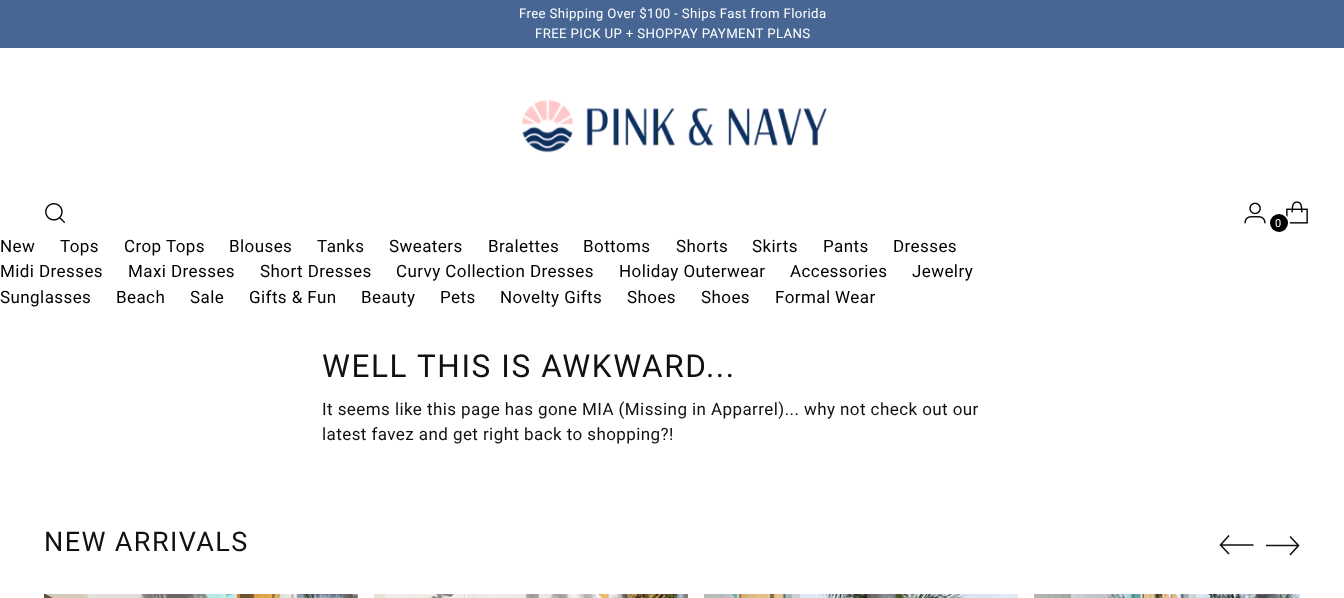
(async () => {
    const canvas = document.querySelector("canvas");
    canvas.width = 1344;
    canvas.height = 598;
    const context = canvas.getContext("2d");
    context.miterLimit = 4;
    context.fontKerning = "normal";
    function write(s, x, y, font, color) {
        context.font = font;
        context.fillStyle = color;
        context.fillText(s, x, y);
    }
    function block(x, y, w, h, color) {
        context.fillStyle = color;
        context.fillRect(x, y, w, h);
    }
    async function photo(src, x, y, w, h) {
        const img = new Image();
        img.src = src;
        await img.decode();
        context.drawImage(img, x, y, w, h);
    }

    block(0, 0, 1344, 598, "rgb(255, 255, 255)");
    block(0, 0, 1344, 48, "rgb(71, 102, 147)");
    context.letterSpacing = "0.35px";
    write("Free Shipping Over $100 - Ships Fast from Florida", 519, 18, "13.25px Roboto", "rgb(255, 255, 255)");
    write("FREE PICK UP + SHOPPAY PAYMENT PLANS", 535, 38, "13.25px Roboto", "rgb(255, 255, 255)");
    await photo("media/1.png", 521, 99, 306, 54);
    await photo("media/2.png", 45, 203, 21, 21);
    await photo("media/3.png", 1244, 202, 22, 22);
    await photo("media/4.png", 1286, 201, 22, 23);
    context.beginPath();
    context.arc(1279.5, 223.5, 9.5, 0, Math.PI * 2);
    context.strokeStyle = "rgb(255, 255, 255)";
    context.lineWidth = 2;
    context.stroke();
    context.fillStyle = "rgb(0, 0, 0)";
    context.beginPath();
    context.arc(1279, 223, 9, 0, Math.PI * 2);
    context.fill();
    context.letterSpacing = "0.42px";
    write("0", 1275, 227, "11px Roboto", "rgb(255, 255, 255)");
    write("New", 0, 252, "17px Roboto", "rgb(0, 0, 0)");
    write("Tops", 60, 252, "17px Roboto", "rgb(0, 0, 0)");
    write("Crop Tops", 124, 252, "17px Roboto", "rgb(0, 0, 0)");
    write("Blouses", 229, 252, "17px Roboto", "rgb(0, 0, 0)");
    write("Tanks", 317, 252, "17px Roboto", "rgb(0, 0, 0)");
    write("Sweaters", 389, 252, "17px Roboto", "rgb(0, 0, 0)");
    write("Bralettes", 488, 252, "17px Roboto", "rgb(0, 0, 0)");
    write("Bottoms", 583, 252, "17px Roboto", "rgb(0, 0, 0)");
    write("Shorts", 676, 252, "17px Roboto", "rgb(0, 0, 0)");
    write("Skirts", 752, 252, "17px Roboto", "rgb(0, 0, 0)");
    write("Pants", 823, 252, "17px Roboto", "rgb(0, 0, 0)");
    write("Dresses", 893, 252, "17px Roboto", "rgb(0, 0, 0)");
    write("Midi Dresses", 0, 277, "17px Roboto", "rgb(0, 0, 0)");
    write("Maxi Dresses", 128, 277, "17px Roboto", "rgb(0, 0, 0)");
    write("Short Dresses", 260, 277, "17px Roboto", "rgb(0, 0, 0)");
    write("Curvy Collection Dresses", 396, 277, "17px Roboto", "rgb(0, 0, 0)");
    write("Holiday Outerwear", 619, 277, "17px Roboto", "rgb(0, 0, 0)");
    write("Accessories", 790, 277, "17px Roboto", "rgb(0, 0, 0)");
    write("Jewelry", 912, 277, "17px Roboto", "rgb(0, 0, 0)");
    write("Sunglasses", 0, 303, "17px Roboto", "rgb(0, 0, 0)");
    write("Beach", 116, 303, "17px Roboto", "rgb(0, 0, 0)");
    write("Sale", 190, 303, "17px Roboto", "rgb(0, 0, 0)");
    write("Gifts & Fun", 249, 303, "17px Roboto", "rgb(0, 0, 0)");
    write("Beauty", 361, 303, "17px Roboto", "rgb(0, 0, 0)");
    write("Pets", 440, 303, "17px Roboto", "rgb(0, 0, 0)");
    write("Novelty Gifts", 500, 303, "17px Roboto", "rgb(0, 0, 0)");
    write("Shoes", 627, 303, "17px Roboto", "rgb(0, 0, 0)");
    write("Shoes", 701, 303, "17px Roboto", "rgb(0, 0, 0)");
    write("Formal Wear", 775, 303, "17px Roboto", "rgb(0, 0, 0)");
    context.letterSpacing = "1.6px";
    write("WELL THIS IS AWKWARD...", 322, 377, "31.5px Roboto", "rgb(17, 17, 17)");
    context.letterSpacing = "0.42px";
    write("It seems like this page has gone MIA (Missing in Apparrel)... why not check out our", 322, 415, "17px Roboto", "rgb(17, 17, 17)");
    write("latest favez and get right back to shopping?!", 322, 440, "17px Roboto", "rgb(17, 17, 17)");
    context.letterSpacing = "1.4px";
    write("NEW ARRIVALS", 44, 551, "27px Roboto", "rgb(17, 17, 17)");
    context.beginPath();
    context.moveTo(1229, 535.5);
    context.lineTo(1220.5, 545);
    context.lineTo(1229, 554);
    context.moveTo(1220.5, 545);
    context.lineTo(1253.5, 545);
    context.strokeStyle = "rgb(17, 17, 17)";
    context.lineWidth = 1.6;
    context.stroke();
    context.beginPath();
    context.moveTo(1290, 555);
    context.lineTo(1298.5, 545.5);
    context.lineTo(1290, 536.5);
    context.moveTo(1298.5, 545.5);
    context.lineTo(1266, 545.5);
    context.stroke();
    await photo("media/5.png", 44, 594, 314, 4);
    await photo("media/6.png", 374, 594, 314, 4);
    await photo("media/7.png", 704, 594, 314, 4);
    await photo("media/8.png", 1034, 594, 266, 4);
})();
